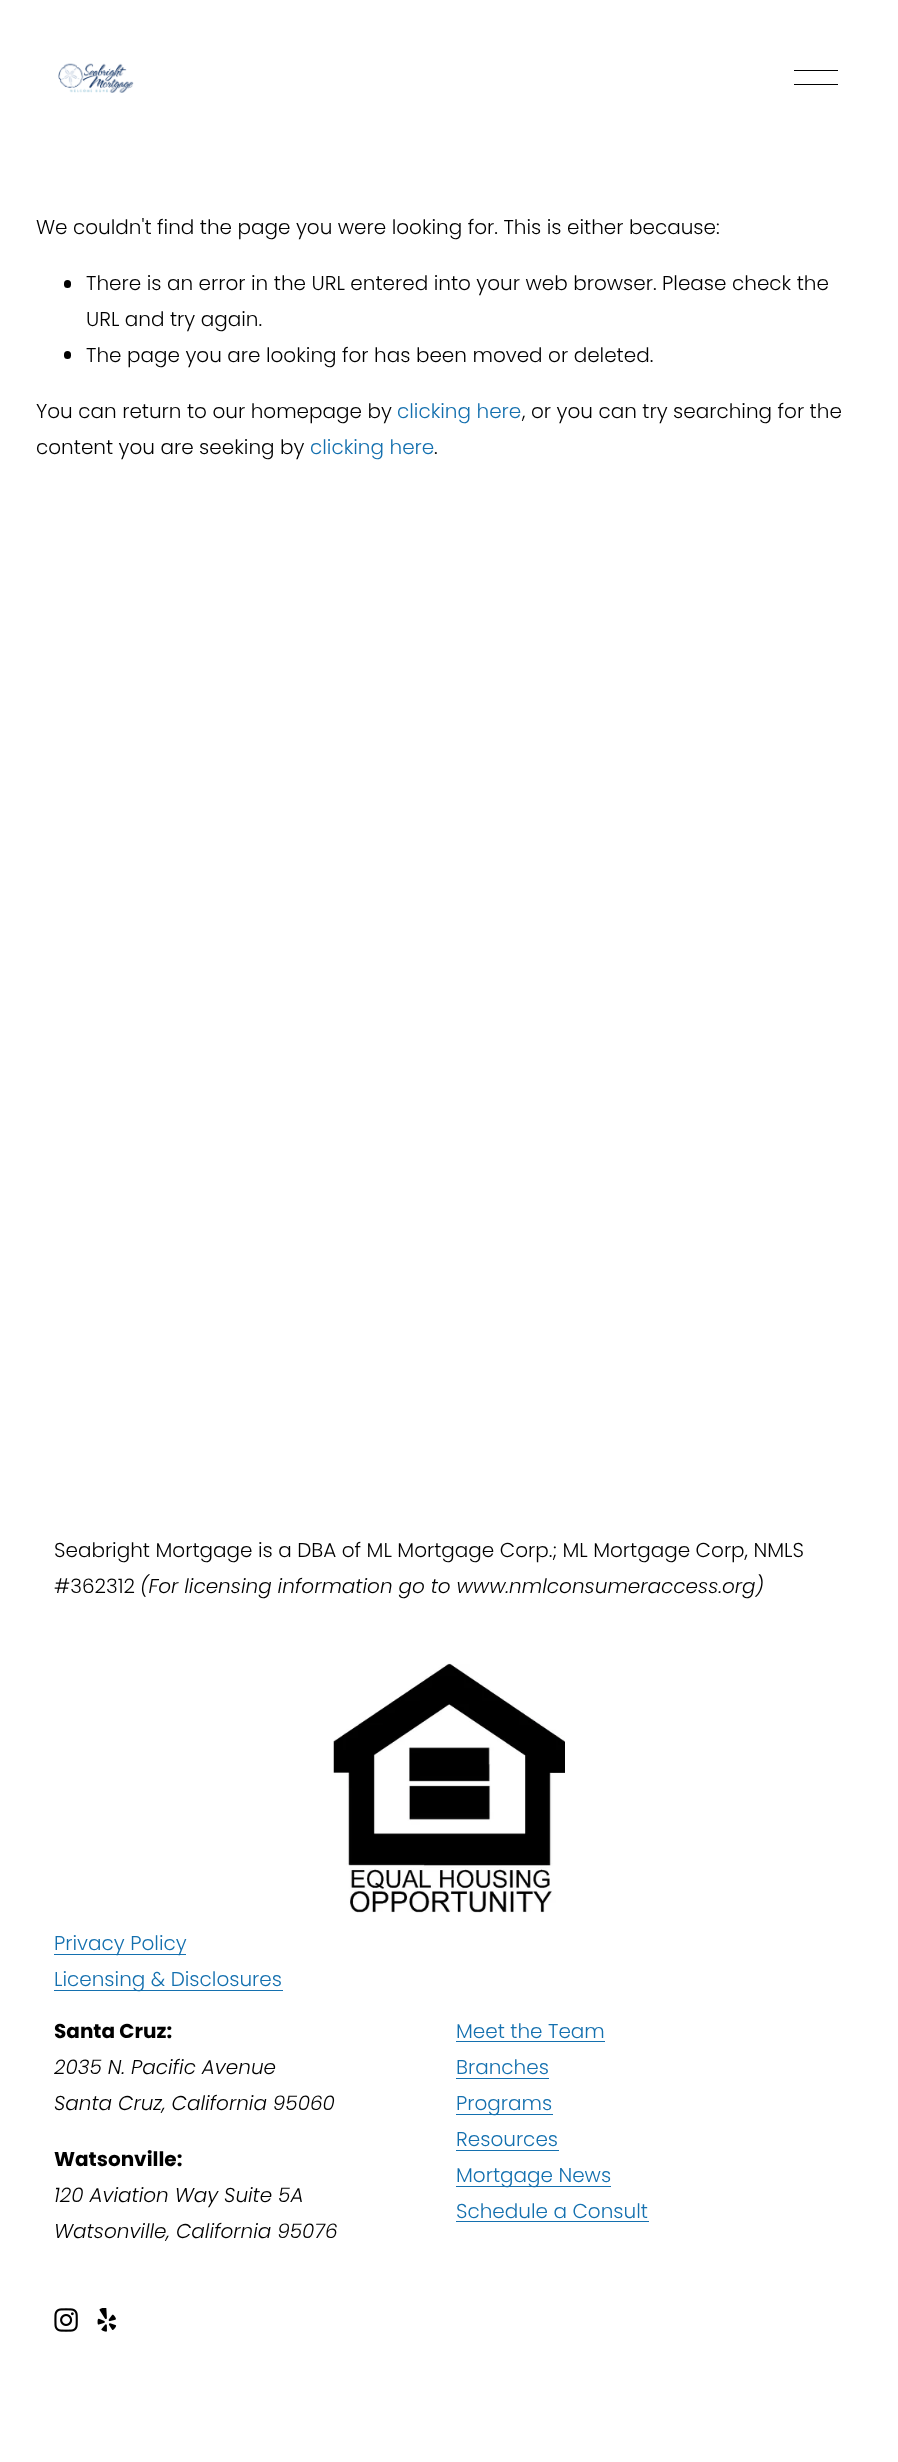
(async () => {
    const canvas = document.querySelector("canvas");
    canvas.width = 898;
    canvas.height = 2462;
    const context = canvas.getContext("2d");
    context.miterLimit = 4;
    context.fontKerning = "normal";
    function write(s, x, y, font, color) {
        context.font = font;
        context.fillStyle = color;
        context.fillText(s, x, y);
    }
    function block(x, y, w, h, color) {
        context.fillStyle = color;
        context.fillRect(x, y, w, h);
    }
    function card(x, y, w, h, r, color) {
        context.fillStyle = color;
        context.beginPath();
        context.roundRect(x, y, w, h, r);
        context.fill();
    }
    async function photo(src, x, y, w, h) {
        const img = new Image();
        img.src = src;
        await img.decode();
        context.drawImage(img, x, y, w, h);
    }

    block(0, 0, 898, 2462, "rgb(255, 255, 255)");
    await photo("media/1.png", 58, 63, 76, 30);
    block(794, 70, 44, 1, "rgb(0, 0, 0)");
    block(794, 84, 44, 1, "rgb(0, 0, 0)");
    write("We couldn't find the page you were looking for. This is either because:", 36, 234, "300 20px Poppins", "rgb(0, 0, 0)");
    card(64, 280, 7, 8, 3.5, "rgb(0, 0, 0)");
    write("There is an error in the URL entered into your web browser. Please check the", 86, 290, "300 20px Poppins", "rgb(0, 0, 0)");
    write("URL and try again.", 86, 326, "300 20px Poppins", "rgb(0, 0, 0)");
    card(64, 351, 7, 8, 3.5, "rgb(0, 0, 0)");
    write("The page you are looking for has been moved or deleted.", 86, 362, "300 20px Poppins", "rgb(0, 0, 0)");
    write("You can return to our homepage by", 36, 418, "300 20px Poppins", "rgb(0, 0, 0)");
    write("clicking here", 397, 418, "300 20px Poppins", "rgb(20, 112, 175)");
    write(", or you can try searching for the", 522, 418, "300 20px Poppins", "rgb(0, 0, 0)");
    write("content you are seeking by", 36, 454, "300 20px Poppins", "rgb(0, 0, 0)");
    write("clicking here", 310, 454, "300 20px Poppins", "rgb(20, 112, 175)");
    write(".", 434, 454, "300 20px Poppins", "rgb(0, 0, 0)");
    write("Seabright Mortgage is a DBA of ML Mortgage Corp.; ML Mortgage Corp, NMLS", 54, 1557, "300 20px Poppins", "rgb(0, 0, 0)");
    write("#362312", 54, 1593, "300 20px Poppins", "rgb(0, 0, 0)");
    write("(For licensing information go to www.nmlconsumeraccess.org)", 140, 1593, "italic 300 20px Poppins", "rgb(0, 0, 0)");
    await photo("media/2.png", 333, 1663, 232, 250);
    block(54, 1954, 132, 1, "rgb(20, 112, 175)");
    write("Privacy Policy", 54, 1950, "300 20px Poppins", "rgb(20, 112, 175)");
    block(54, 1990, 229, 1, "rgb(20, 112, 175)");
    write("Licensing & Disclosures", 54, 1986, "300 20px Poppins", "rgb(20, 112, 175)");
    write("Santa Cruz:", 54, 2038, "bold 20px Poppins", "rgb(0, 0, 0)");
    write("2035 N. Pacific Avenue", 54, 2074, "italic 300 20px Poppins", "rgb(0, 0, 0)");
    write("Santa Cruz, California 95060", 54, 2110, "italic 300 20px Poppins", "rgb(0, 0, 0)");
    write("Watsonville:", 54, 2166, "bold 20px Poppins", "rgb(0, 0, 0)");
    write("120 Aviation Way Suite 5A", 54, 2202, "italic 300 20px Poppins", "rgb(0, 0, 0)");
    write("Watsonville, California 95076", 54, 2238, "italic 300 20px Poppins", "rgb(0, 0, 0)");
    write("Meet the Team", 456, 2038, "300 20px Poppins", "rgb(20, 112, 175)");
    block(456, 2041, 149, 1, "rgb(20, 112, 175)");
    write("Branches", 456, 2074, "300 20px Poppins", "rgb(20, 112, 175)");
    block(456, 2078, 93, 1, "rgb(20, 112, 175)");
    block(456, 2114, 97, 1, "rgb(20, 112, 175)");
    write("Programs", 456, 2110, "300 20px Poppins", "rgb(20, 112, 175)");
    write("Resources", 456, 2146, "300 20px Poppins", "rgb(20, 112, 175)");
    block(456, 2150, 103, 1, "rgb(20, 112, 175)");
    block(456, 2186, 155, 1, "rgb(20, 112, 175)");
    write("Mortgage News", 456, 2182, "300 20px Poppins", "rgb(20, 112, 175)");
    write("Schedule a Consult", 456, 2218, "300 20px Poppins", "rgb(20, 112, 175)");
    block(456, 2221, 193, 1, "rgb(20, 112, 175)");
    await photo("media/3.png", 54, 2308, 24, 24);
    await photo("media/4.png", 97, 2308, 20, 24);
})();
